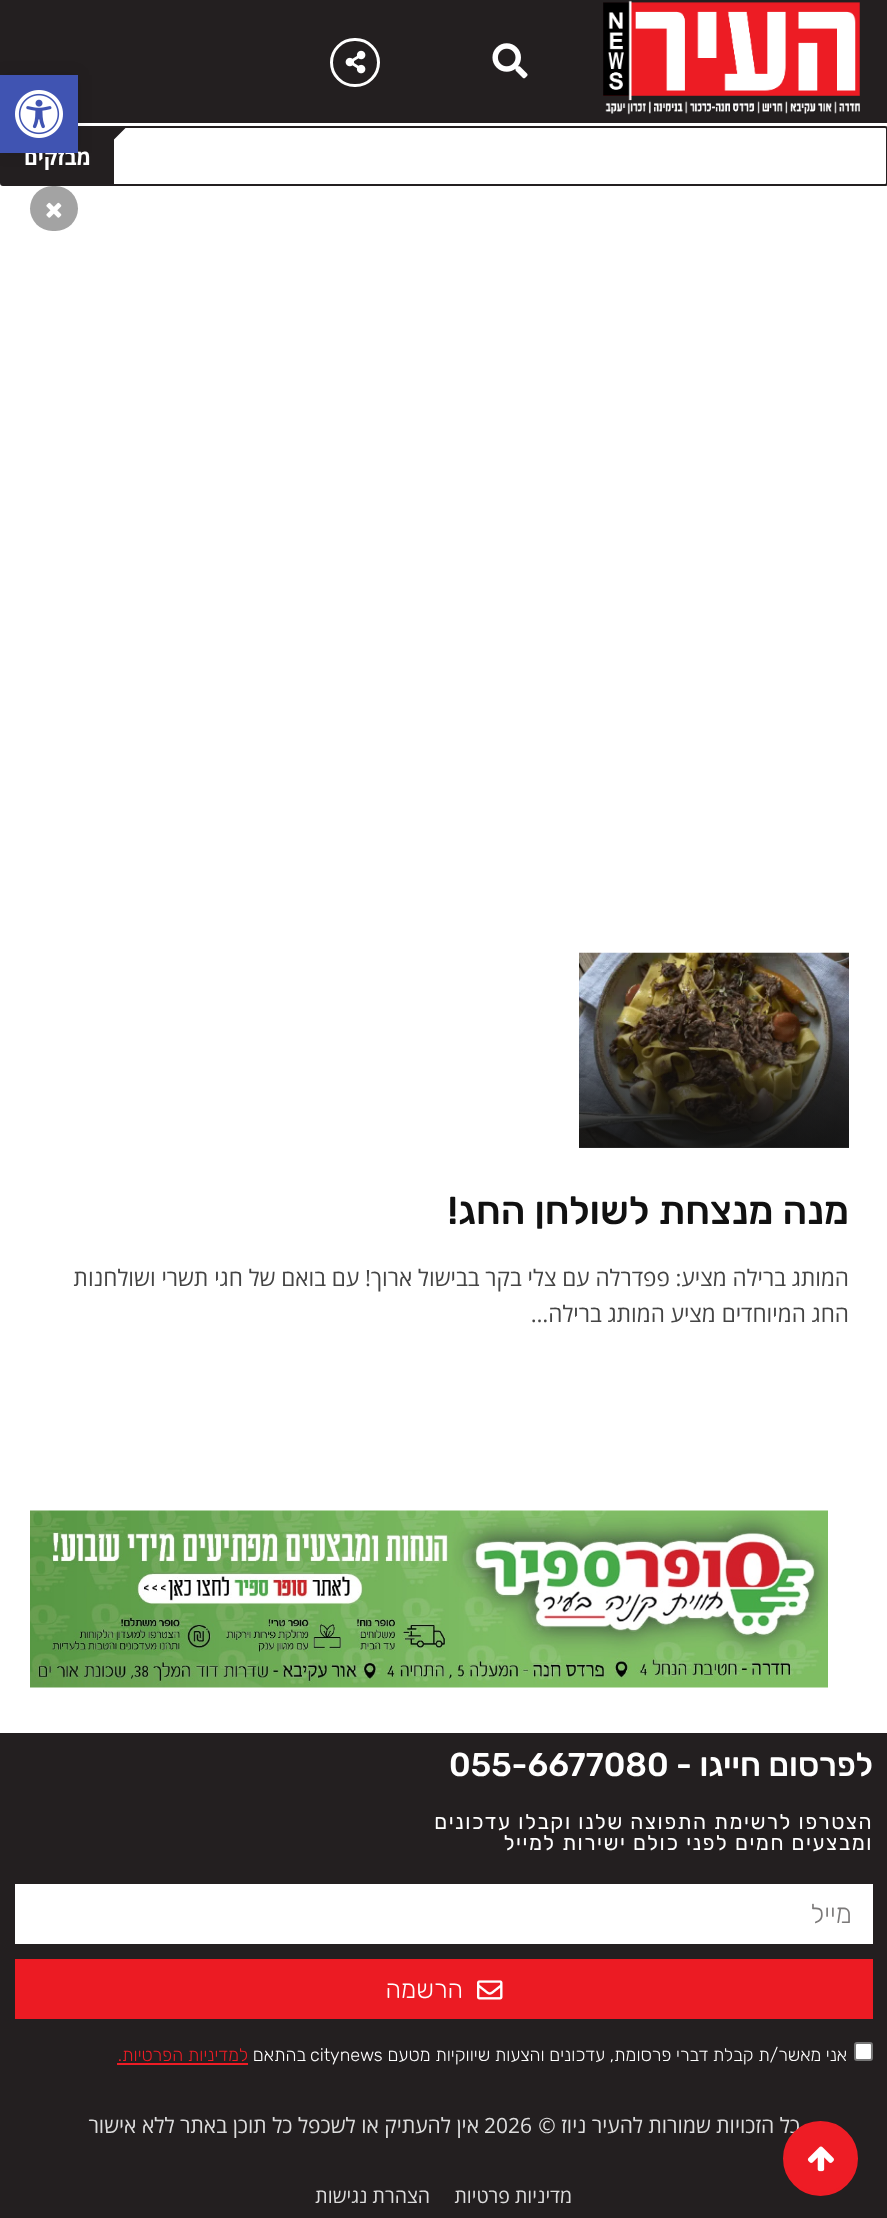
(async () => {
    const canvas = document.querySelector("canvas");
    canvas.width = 887;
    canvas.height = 2218;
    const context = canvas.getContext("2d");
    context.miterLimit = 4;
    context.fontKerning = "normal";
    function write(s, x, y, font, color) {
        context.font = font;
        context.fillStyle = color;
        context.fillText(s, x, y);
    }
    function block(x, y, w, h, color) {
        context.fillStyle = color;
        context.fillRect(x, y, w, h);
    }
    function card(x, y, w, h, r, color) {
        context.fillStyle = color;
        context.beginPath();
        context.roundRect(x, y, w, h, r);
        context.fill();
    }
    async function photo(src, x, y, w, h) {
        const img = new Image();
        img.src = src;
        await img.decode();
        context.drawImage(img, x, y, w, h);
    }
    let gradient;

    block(0, 0, 887, 2218, "rgb(255, 255, 255)");
    block(0, 0, 887, 123, "rgb(35, 31, 32)");
    context.beginPath();
    context.roundRect(1, 127, 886, 58, 2);
    context.strokeStyle = "rgb(35, 31, 32)";
    context.lineWidth = 2;
    context.stroke();
    context.beginPath();
    context.roundRect(2, 128, 112, 57, [1.5, 0, 0, 1.5]);
    context.fill();
    context.fillStyle = "rgba(0, 0, 0, 0.1)";
    context.filter = "blur(7.5px)";
    context.beginPath();
    context.rect(0, 75, 78, 78);
    context.fill();
    context.filter = "none";
    context.direction = "rtl";
    write("מבזקים", 91, 165, "bold 21px Open Sans", "rgb(255, 255, 255)");
    block(0, 75, 78, 78, "rgb(64, 84, 178)");
    await photo("media/1.png", 15, 90, 48, 48);
    await photo("media/2.png", 603, 0, 257, 115);
    await photo("media/3.png", 492, 43, 36, 36);
    context.beginPath();
    context.roundRect(331.5, 39.5, 47, 46, 23);
    context.strokeStyle = "rgb(255, 255, 255)";
    context.lineWidth = 3;
    context.stroke();
    await photo("media/4.png", 345, 50, 21, 24);
    context.fillStyle = "rgb(35, 31, 32)";
    context.beginPath();
    context.moveTo(125.5, 128);
    context.lineTo(114, 139.5);
    context.lineTo(114, 128);
    context.closePath();
    context.fill();
    card(30, 186, 48, 45, 22.5, "rgb(163, 163, 163)");
    await photo("media/5.png", 46, 202, 16, 16);
    await photo("media/6.png", 579, 952, 270, 196);
    gradient = context.createLinearGradient(714, 1011, 714, 1148);
    gradient.addColorStop(0, "rgba(17, 17, 17, 0)");
    gradient.addColorStop(1, "rgba(17, 17, 17, 0.7)");
    context.fillStyle = gradient;
    context.fillRect(579, 1015, 270, 133);
    context.fillRect(579, 1015, 270, 133);
    write("מנה מנצחת לשולחן החג!", 849, 1224, "500 39px Rubik", "rgb(17, 17, 17)");
    write("המותג ברילה מציע: פפדרלה עם צלי בקר בבישול ארוך! עם בואם של חגי תשרי ושולחנות", 849, 1286, "22.5px Open Sans", "rgb(68, 68, 68)");
    write("החג המיוחדים מציע המותג ברילה…", 849, 1322, "22.5px Open Sans", "rgb(68, 68, 68)");
    await photo("media/7.png", 30, 1510, 798, 178);
    block(0, 1733, 887, 485, "rgb(35, 31, 32)");
    write("לפרסום חייגו -", 873, 1776, "500 33px Rubik", "rgb(255, 255, 255)");
    context.direction = "ltr";
    write("055-6677080", 449, 1776, "500 33px Rubik", "rgb(255, 255, 255)");
    context.letterSpacing = "1.5px";
    context.direction = "rtl";
    write("הצטרפו לרשימת התפוצה שלנו וקבלו עדכונים", 873, 1829, "21px Rubik", "rgb(255, 255, 255)");
    write("ומבצעים חמים לפני כולם ישירות למייל", 873, 1850, "21px Rubik", "rgb(255, 255, 255)");
    block(15, 1884, 858, 60, "rgb(255, 255, 255)");
    context.letterSpacing = "0px";
    write("מייל", 852, 1923, "300 27px Rubik", "rgb(123, 121, 121)");
    block(15, 1959, 858, 60, "rgb(236, 27, 35)");
    await photo("media/8.png", 477, 1980, 26, 20);
    write("הרשמה", 463, 1998, "300 25.5px Rubik", "rgb(255, 255, 255)");
    context.beginPath();
    context.roundRect(855, 2043, 17, 17, 2);
    context.fill();
    context.strokeStyle = "rgb(118, 118, 118)";
    context.lineWidth = 2;
    context.stroke();
    write("אני מאשר/ת קבלת דברי פרסומת, עדכונים והצעות שיווקיות מטעם", 847, 2061, "300 18px Rubik", "rgb(255, 255, 255)");
    context.direction = "ltr";
    write("citynews", 310, 2061, "300 18px Rubik", "rgb(255, 255, 255)");
    context.direction = "rtl";
    write("בהתאם", 306, 2061, "300 18px Rubik", "rgb(255, 255, 255)");
    write("למדיניות הפרטיות.", 248, 2061, "300 18px Rubik", "rgb(238, 28, 37)");
    block(117, 2063, 131, 2, "rgb(238, 28, 37)");
    write("כל הזכויות שמורות להעיר ניוז ©", 800, 2133, "21px Open Sans", "rgb(221, 221, 221)");
    context.direction = "ltr";
    write("2026", 484, 2133, "21px Open Sans", "rgb(221, 221, 221)");
    context.direction = "rtl";
    write("אין להעתיק או לשכפל כל תוכן באתר ללא אישור", 479, 2133, "21px Open Sans", "rgb(221, 221, 221)");
    write("מדיניות פרטיות", 572, 2203, "19.5px Open Sans", "rgb(221, 221, 221)");
    write("הצהרת נגישות", 430, 2203, "19.5px Open Sans", "rgb(221, 221, 221)");
    context.fillStyle = "rgb(238, 28, 37)";
    context.beginPath();
    context.arc(820.5, 2158.5, 36, 0, Math.PI * 2);
    context.fill();
    context.strokeStyle = "rgb(238, 28, 37)";
    context.lineWidth = 3;
    context.stroke();
    await photo("media/9.png", 807, 2146, 27, 26);
})();
